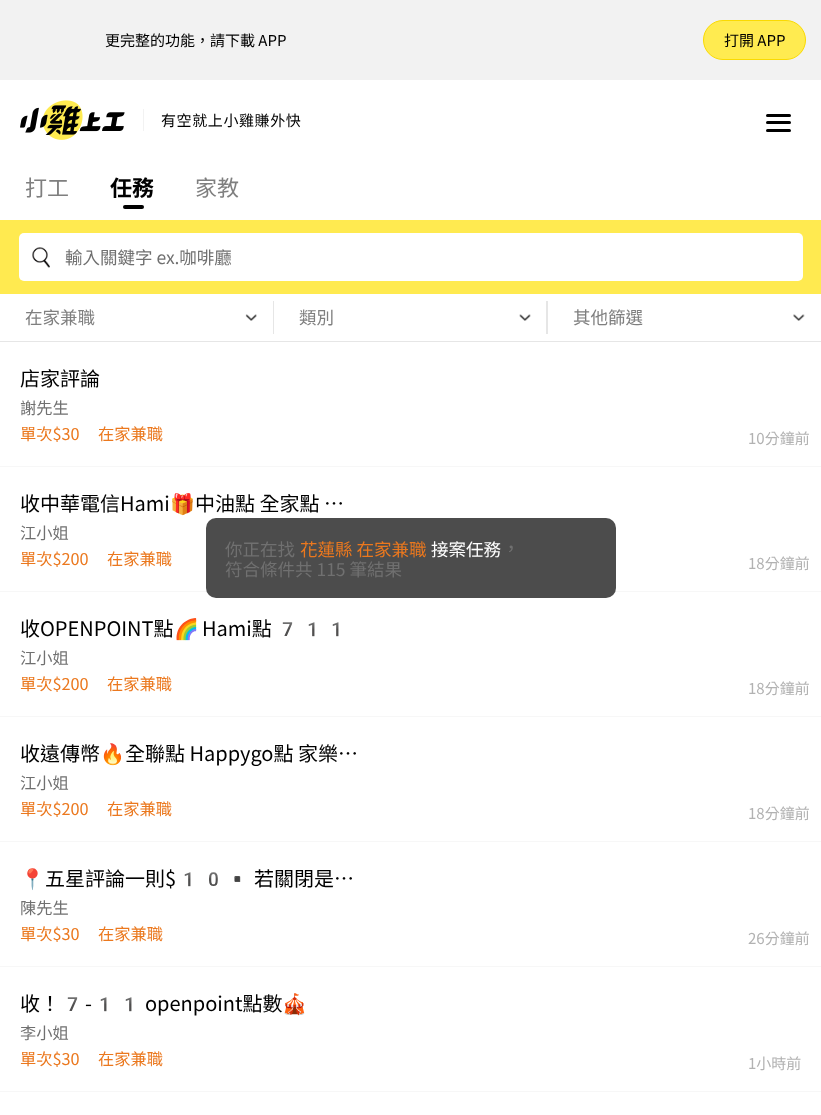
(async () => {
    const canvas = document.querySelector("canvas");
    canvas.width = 821;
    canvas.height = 1115;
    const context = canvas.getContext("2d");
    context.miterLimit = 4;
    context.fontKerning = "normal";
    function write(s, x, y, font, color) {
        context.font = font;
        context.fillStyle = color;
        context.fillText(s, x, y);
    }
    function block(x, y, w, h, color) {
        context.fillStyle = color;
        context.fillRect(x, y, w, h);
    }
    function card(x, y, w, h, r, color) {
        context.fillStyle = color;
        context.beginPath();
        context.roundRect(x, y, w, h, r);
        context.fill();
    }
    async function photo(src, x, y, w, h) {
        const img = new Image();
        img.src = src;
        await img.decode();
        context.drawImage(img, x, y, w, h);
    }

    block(0, 0, 821, 1115, "rgb(255, 255, 255)");
    block(0, 0, 821, 80, "rgb(242, 242, 242)");
    write("更完整的功能，請下載 APP", 105, 46, "15px Noto Sans TC", "rgb(0, 0, 0)");
    context.fillStyle = "rgb(255, 235, 80)";
    context.beginPath();
    context.roundRect(703.5, 20.5, 102, 39, 19.5);
    context.fill();
    context.strokeStyle = "rgb(250, 218, 0)";
    context.stroke();
    write("打開 APP", 724, 46, "15px Noto Sans TC", "rgb(0, 0, 0)");
    await photo("media/1.png", 20, 100, 105, 40);
    block(143, 109, 1, 22, "rgb(242, 242, 242)");
    context.letterSpacing = "0.6px";
    write("有空就上小雞賺外快", 161, 126, "15px Noto Sans TC", "rgb(0, 0, 0)");
    card(766, 114, 25, 3, 1.5, "rgb(0, 0, 0)");
    card(766, 121, 25, 3, 1.5, "rgb(0, 0, 0)");
    card(766, 129, 25, 3, 1.5, "rgb(0, 0, 0)");
    context.letterSpacing = "0px";
    write("打工", 25, 196, "22px Noto Sans TC", "rgb(127, 127, 127)");
    write("任務", 110, 196, "bold 22px Noto Sans TC", "rgb(0, 0, 0)");
    card(123, 205, 21, 4, 2, "rgb(0, 0, 0)");
    write("家教", 195, 196, "22px Noto Sans TC", "rgb(127, 127, 127)");
    block(0, 220, 821, 74, "rgb(255, 234, 80)");
    card(19, 233, 784, 48, 5, "rgb(255, 255, 255)");
    await photo("media/2.png", 32, 247, 18, 21);
    write("輸入關鍵字 ex.咖啡廳", 65, 264, "17.5px Noto Sans TC", "rgb(112, 112, 112)");
    block(0, 341, 821, 1, "rgb(230, 230, 230)");
    write("在家兼職", 25, 324, "17.5px Noto Sans TC", "rgb(127, 127, 127)");
    await photo("media/3.png", 245, 314, 12, 7);
    block(273, 301, 1, 33, "rgb(230, 230, 230)");
    write("類別", 299, 324, "17.5px Noto Sans TC", "rgb(127, 127, 127)");
    await photo("media/4.png", 519, 314, 12, 7);
    block(546, 301, 2, 33, "rgb(230, 230, 230)");
    write("其他篩選", 573, 324, "17.5px Noto Sans TC", "rgb(127, 127, 127)");
    await photo("media/5.png", 793, 314, 12, 7);
    block(0, 466, 821, 1, "rgb(247, 247, 247)");
    write("店家評論", 20, 386, "20px Noto Sans TC", "rgb(0, 0, 0)");
    write("謝先生", 20, 414, "16.25px Noto Sans TC", "rgb(112, 112, 112)");
    write("單次$30", 20, 440, "16.25px Noto Sans TC", "rgb(235, 120, 30)");
    write("在家兼職", 98, 440, "16.25px Noto Sans TC", "rgb(235, 120, 30)");
    write("10分鐘前", 748, 444, "15px Noto Sans TC", "rgb(178, 178, 178)");
    block(0, 591, 821, 1, "rgb(247, 247, 247)");
    write("收中華電信Hami", 20, 511, "20px Noto Sans TC", "rgb(0, 0, 0)");
    write("🎁", 170, 511, "20px Noto Color Emoji", "rgb(0, 0, 0)");
    write("中油點 全家點 …", 195, 511, "20px Noto Sans TC", "rgb(0, 0, 0)");
    write("江小姐", 20, 539, "16.25px Noto Sans TC", "rgb(112, 112, 112)");
    write("單次$200", 20, 565, "16.25px Noto Sans TC", "rgb(235, 120, 30)");
    write("在家兼職", 107, 565, "16.25px Noto Sans TC", "rgb(235, 120, 30)");
    write("18分鐘前", 748, 569, "15px Noto Sans TC", "rgb(178, 178, 178)");
    block(0, 716, 821, 1, "rgb(247, 247, 247)");
    write("收OPENPOINT點", 20, 636, "20px Noto Sans TC", "rgb(0, 0, 0)");
    write("🌈", 174, 636, "20px Noto Color Emoji", "rgb(0, 0, 0)");
    write("Hami點", 202, 636, "20px Noto Sans TC", "rgb(0, 0, 0)");
    write("711", 275, 636, "20px Noto Color Emoji", "rgb(0, 0, 0)");
    write("江小姐", 20, 664, "16.25px Noto Sans TC", "rgb(112, 112, 112)");
    write("單次$200", 20, 690, "16.25px Noto Sans TC", "rgb(235, 120, 30)");
    write("在家兼職", 107, 690, "16.25px Noto Sans TC", "rgb(235, 120, 30)");
    write("18分鐘前", 748, 694, "15px Noto Sans TC", "rgb(178, 178, 178)");
    block(0, 841, 821, 1, "rgb(247, 247, 247)");
    write("收遠傳幣", 20, 761, "20px Noto Sans TC", "rgb(0, 0, 0)");
    write("🔥", 100, 761, "20px Noto Color Emoji", "rgb(0, 0, 0)");
    write("全聯點 Happygo點 家樂…", 125, 761, "20px Noto Sans TC", "rgb(0, 0, 0)");
    write("江小姐", 20, 789, "16.25px Noto Sans TC", "rgb(112, 112, 112)");
    write("單次$200", 20, 815, "16.25px Noto Sans TC", "rgb(235, 120, 30)");
    write("在家兼職", 107, 815, "16.25px Noto Sans TC", "rgb(235, 120, 30)");
    write("18分鐘前", 748, 819, "15px Noto Sans TC", "rgb(178, 178, 178)");
    block(0, 966, 821, 1, "rgb(247, 247, 247)");
    write("📍", 20, 886, "20px Noto Color Emoji", "rgb(0, 0, 0)");
    write("五星評論一則$", 45, 886, "20px Noto Sans TC", "rgb(0, 0, 0)");
    write("10▪️", 176, 886, "20px Noto Color Emoji", "rgb(0, 0, 0)");
    write("若關閉是…", 254, 886, "20px Noto Sans TC", "rgb(0, 0, 0)");
    write("陳先生", 20, 914, "16.25px Noto Sans TC", "rgb(112, 112, 112)");
    write("單次$30", 20, 940, "16.25px Noto Sans TC", "rgb(235, 120, 30)");
    write("在家兼職", 98, 940, "16.25px Noto Sans TC", "rgb(235, 120, 30)");
    write("26分鐘前", 748, 944, "15px Noto Sans TC", "rgb(178, 178, 178)");
    block(0, 1091, 821, 1, "rgb(247, 247, 247)");
    write("收！", 20, 1011, "20px Noto Sans TC", "rgb(0, 0, 0)");
    write("7", 60, 1011, "20px Noto Color Emoji", "rgb(0, 0, 0)");
    write("-", 85, 1011, "20px Noto Sans TC", "rgb(0, 0, 0)");
    write("11", 92, 1011, "20px Noto Color Emoji", "rgb(0, 0, 0)");
    write("openpoint點數", 145, 1011, "20px Noto Sans TC", "rgb(0, 0, 0)");
    write("🎪", 282, 1011, "20px Noto Color Emoji", "rgb(0, 0, 0)");
    write("李小姐", 20, 1039, "16.25px Noto Sans TC", "rgb(112, 112, 112)");
    write("單次$30", 20, 1065, "16.25px Noto Sans TC", "rgb(235, 120, 30)");
    write("在家兼職", 98, 1065, "16.25px Noto Sans TC", "rgb(235, 120, 30)");
    write("1小時前", 748, 1069, "15px Noto Sans TC", "rgb(178, 178, 178)");
    card(206, 518, 410, 80, 10, "rgb(76, 76, 76)");
    write("你正在找", 225, 556, "17.5px Noto Sans TC", "rgb(112, 112, 112)");
    write("花蓮縣 在家兼職", 300, 556, "17.5px Noto Sans TC", "rgb(235, 120, 30)");
    write("接案任務", 431, 556, "17.5px Noto Sans TC", "rgb(255, 255, 255)");
    write("，", 501, 556, "20px Noto Sans TC", "rgb(112, 112, 112)");
    write("符合條件共 115 筆結果", 225, 576, "17.5px Noto Sans TC", "rgb(112, 112, 112)");
})();
